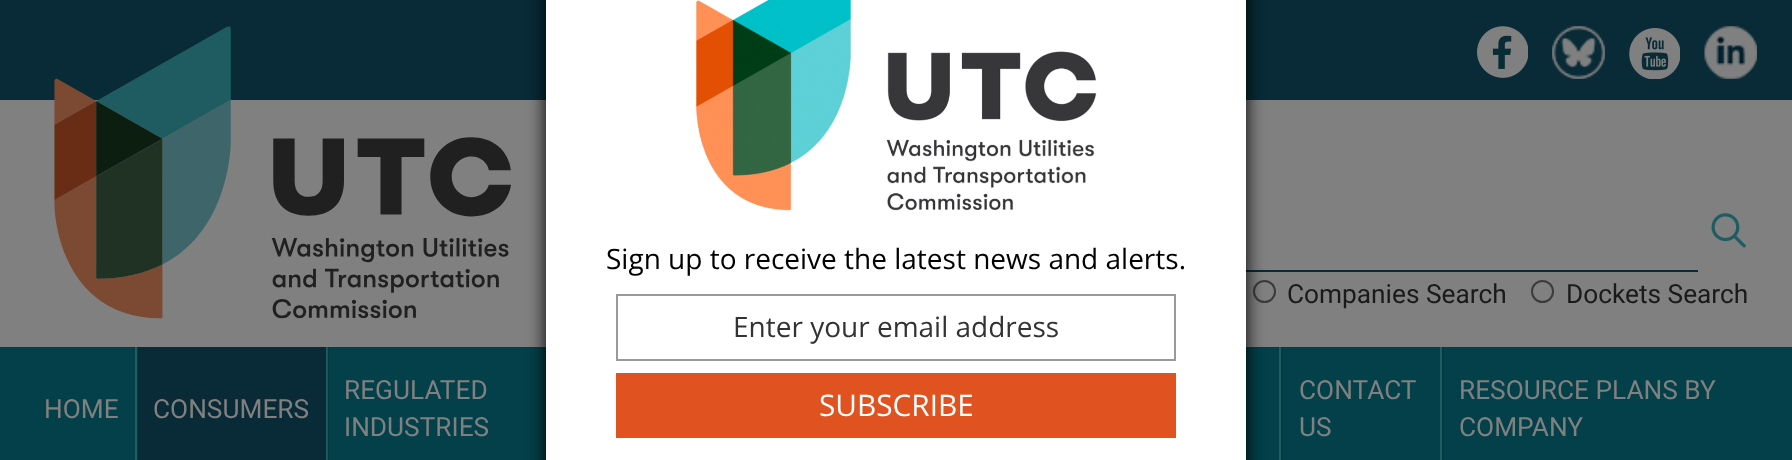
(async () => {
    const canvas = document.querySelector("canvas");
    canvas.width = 1792;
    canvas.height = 460;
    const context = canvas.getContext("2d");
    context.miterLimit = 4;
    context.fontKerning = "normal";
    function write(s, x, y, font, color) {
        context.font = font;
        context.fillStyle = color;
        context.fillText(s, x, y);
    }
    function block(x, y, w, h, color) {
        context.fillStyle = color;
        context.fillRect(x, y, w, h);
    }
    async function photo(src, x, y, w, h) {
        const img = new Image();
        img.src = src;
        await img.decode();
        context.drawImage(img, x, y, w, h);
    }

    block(0, 0, 1792, 460, "rgb(128, 128, 128)");
    block(0, 0, 1792, 100, "rgb(8, 43, 55)");
    block(1246, 270, 452, 2, "rgb(8, 43, 55)");
    context.beginPath();
    context.arc(1264.5, 291.5, 10.5, 0, Math.PI * 2);
    context.strokeStyle = "rgb(59, 59, 59)";
    context.lineWidth = 2;
    context.stroke();
    block(0, 347, 1792, 113, "rgb(3, 64, 73)");
    context.fillStyle = "rgb(0, 0, 0)";
    context.filter = "blur(9px)";
    context.beginPath();
    context.roundRect(546, -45, 700, 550, 18);
    context.fill();
    context.filter = "none";
    block(546, 0, 700, 460, "rgb(255, 255, 255)");
    await photo("media/1.png", 696, 0, 401, 211);
    write("Sign up to receive the latest news and alerts.", 606, 269, "28px Open Sans", "rgb(0, 0, 0)");
    context.strokeStyle = "rgb(153, 153, 153)";
    context.strokeRect(617, 295, 558, 65);
    write("Enter your email address", 733, 337, "28px Open Sans", "rgb(51, 51, 51)");
    block(616, 373, 560, 65, "rgb(224, 82, 31)");
    write("SUBSCRIBE", 819, 416, "29.75px Open Sans", "rgb(255, 255, 255)");
    await photo("media/2.png", 1477, 26, 51, 52);
    await photo("media/3.png", 1552, 26, 53, 53);
    await photo("media/4.png", 1629, 28, 51, 51);
    await photo("media/5.png", 1704, 26, 53, 53);
    await photo("media/6.png", 54, 26, 457, 293);
    await photo("media/7.png", 1711, 213, 35, 35);
    write("Companies Search", 1287, 303, "26.25px Roboto", "rgb(26, 26, 26)");
    context.beginPath();
    context.arc(1542.5, 291.5, 10.5, 0, Math.PI * 2);
    context.strokeStyle = "rgb(59, 59, 59)";
    context.stroke();
    write("Dockets Search", 1566, 303, "26.25px Roboto", "rgb(26, 26, 26)");
    block(328, 347, 1, 113, "rgb(3, 58, 66)");
    block(135, 347, 2, 113, "rgb(30, 93, 98)");
    write("HOME", 44, 418, "26.25px Roboto", "rgb(128, 128, 128)");
    block(137, 347, 1, 113, "rgb(3, 58, 66)");
    block(138, 347, 188, 113, "rgb(8, 43, 55)");
    block(326, 347, 1, 113, "rgb(30, 93, 98)");
    block(327, 347, 1, 113, "rgb(27, 84, 88)");
    write("CONSUMERS", 153, 418, "26.25px Roboto", "rgb(128, 128, 128)");
    write("REGULATED", 344, 399, "26.25px Roboto", "rgb(128, 128, 128)");
    write("INDUSTRIES", 344, 436, "26.25px Roboto", "rgb(128, 128, 128)");
    block(1279, 347, 2, 113, "rgb(30, 93, 98)");
    block(1281, 347, 2, 113, "rgb(3, 58, 66)");
    block(1440, 347, 2, 113, "rgb(30, 93, 98)");
    write("CONTACT", 1299, 399, "26.25px Roboto", "rgb(128, 128, 128)");
    write("US", 1299, 436, "26.25px Roboto", "rgb(128, 128, 128)");
    block(1442, 347, 2, 113, "rgb(3, 58, 66)");
    write("RESOURCE PLANS BY", 1459, 399, "26.25px Roboto", "rgb(128, 128, 128)");
    write("COMPANY", 1459, 436, "26.25px Roboto", "rgb(128, 128, 128)");
})();
